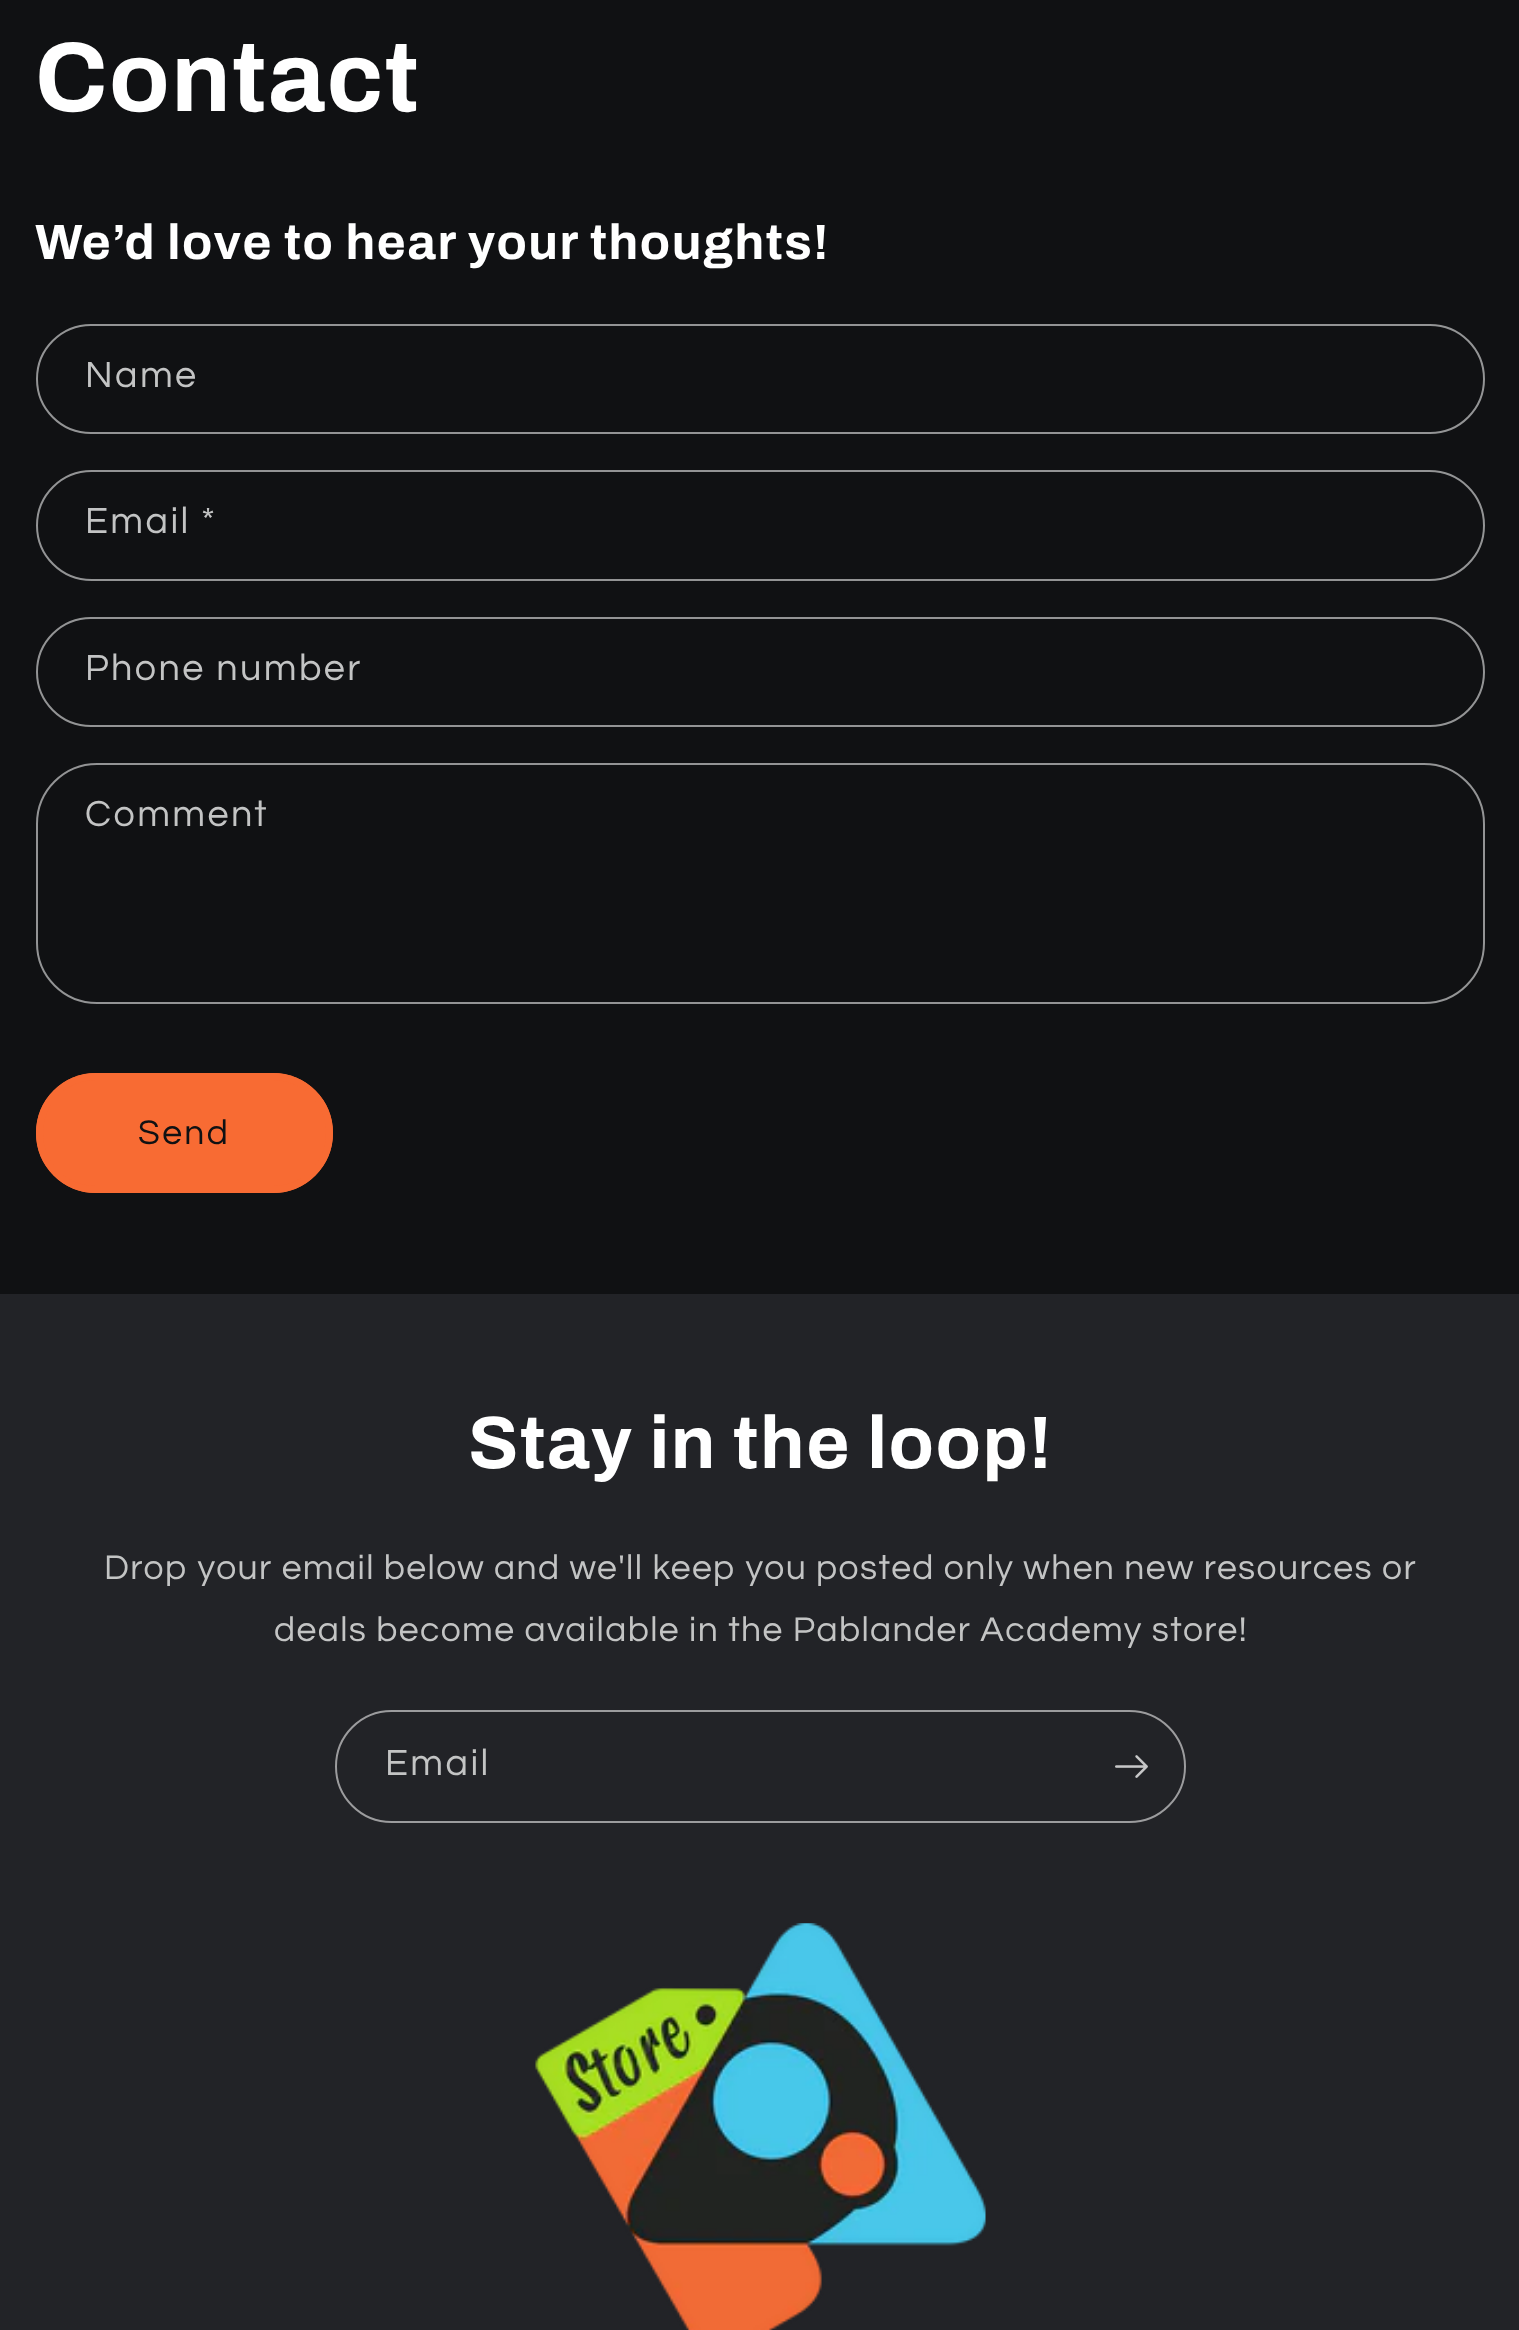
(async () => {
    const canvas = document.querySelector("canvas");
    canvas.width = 1519;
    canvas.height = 2330;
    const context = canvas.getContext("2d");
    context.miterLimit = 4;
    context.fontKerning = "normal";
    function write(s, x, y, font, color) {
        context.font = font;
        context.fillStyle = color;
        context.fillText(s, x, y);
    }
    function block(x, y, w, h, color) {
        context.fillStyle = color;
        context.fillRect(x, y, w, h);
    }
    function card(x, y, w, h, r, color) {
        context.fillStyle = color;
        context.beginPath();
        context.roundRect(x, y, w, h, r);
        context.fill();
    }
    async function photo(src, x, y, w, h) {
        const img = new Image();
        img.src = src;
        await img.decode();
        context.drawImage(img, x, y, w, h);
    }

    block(0, 0, 1519, 2330, "rgb(16, 17, 19)");
    context.letterSpacing = "1.5px";
    write("Contact", 35, 111, "bold 99px Archivo", "rgb(255, 255, 255)");
    write("We’d love to hear your thoughts!", 35, 259, "bold 49.5px Archivo", "rgb(255, 255, 255)");
    context.beginPath();
    context.roundRect(37, 325, 1447, 108, 54);
    context.strokeStyle = "rgb(147, 148, 149)";
    context.lineWidth = 2;
    context.stroke();
    context.letterSpacing = "2.4px";
    write("Name", 85, 387, "37.75px Questrial", "rgb(195, 196, 196)");
    context.beginPath();
    context.roundRect(37, 471, 1447, 109, 54.5);
    context.stroke();
    write("Email *", 85, 533, "37.75px Questrial", "rgb(195, 196, 196)");
    context.beginPath();
    context.roundRect(37, 618, 1447, 108, 54);
    context.stroke();
    write("Phone number", 85, 680, "37.75px Questrial", "rgb(195, 196, 196)");
    context.beginPath();
    context.roundRect(37, 764, 1447, 239, 60);
    context.stroke();
    write("Comment", 85, 826, "37.75px Questrial", "rgb(195, 196, 196)");
    card(36, 1073, 297, 120, 60, "rgb(248, 107, 51)");
    context.beginPath();
    context.roundRect(39.5, 1076.5, 290, 113, 56.5);
    context.strokeStyle = "rgb(248, 107, 51)";
    context.lineWidth = 7;
    context.stroke();
    write("Send", 138, 1144, "35.45px Questrial", "rgb(16, 17, 19)");
    block(0, 1294, 1519, 1036, "rgb(34, 35, 39)");
    context.letterSpacing = "1.5px";
    write("Stay in the loop!", 468, 1468, "bold 74.25px Archivo", "rgb(255, 255, 255)");
    context.letterSpacing = "1.42px";
    write("Drop your email below and we'll keep you posted only when new resources or", 104, 1579, "35.45px Questrial", "rgb(195, 196, 196)");
    write("deals become available in the Pablander Academy store!", 274, 1641, "35.45px Questrial", "rgb(195, 196, 196)");
    context.beginPath();
    context.roundRect(336, 1711, 849, 111, 55.5);
    context.strokeStyle = "rgb(156, 156, 158)";
    context.lineWidth = 2;
    context.stroke();
    context.letterSpacing = "2.4px";
    write("Email", 385, 1775, "37.75px Questrial", "rgb(195, 196, 196)");
    await photo("media/1.png", 1115, 1755, 33, 23);
    await photo("media/2.png", 535, 1923, 451, 407);
})();
